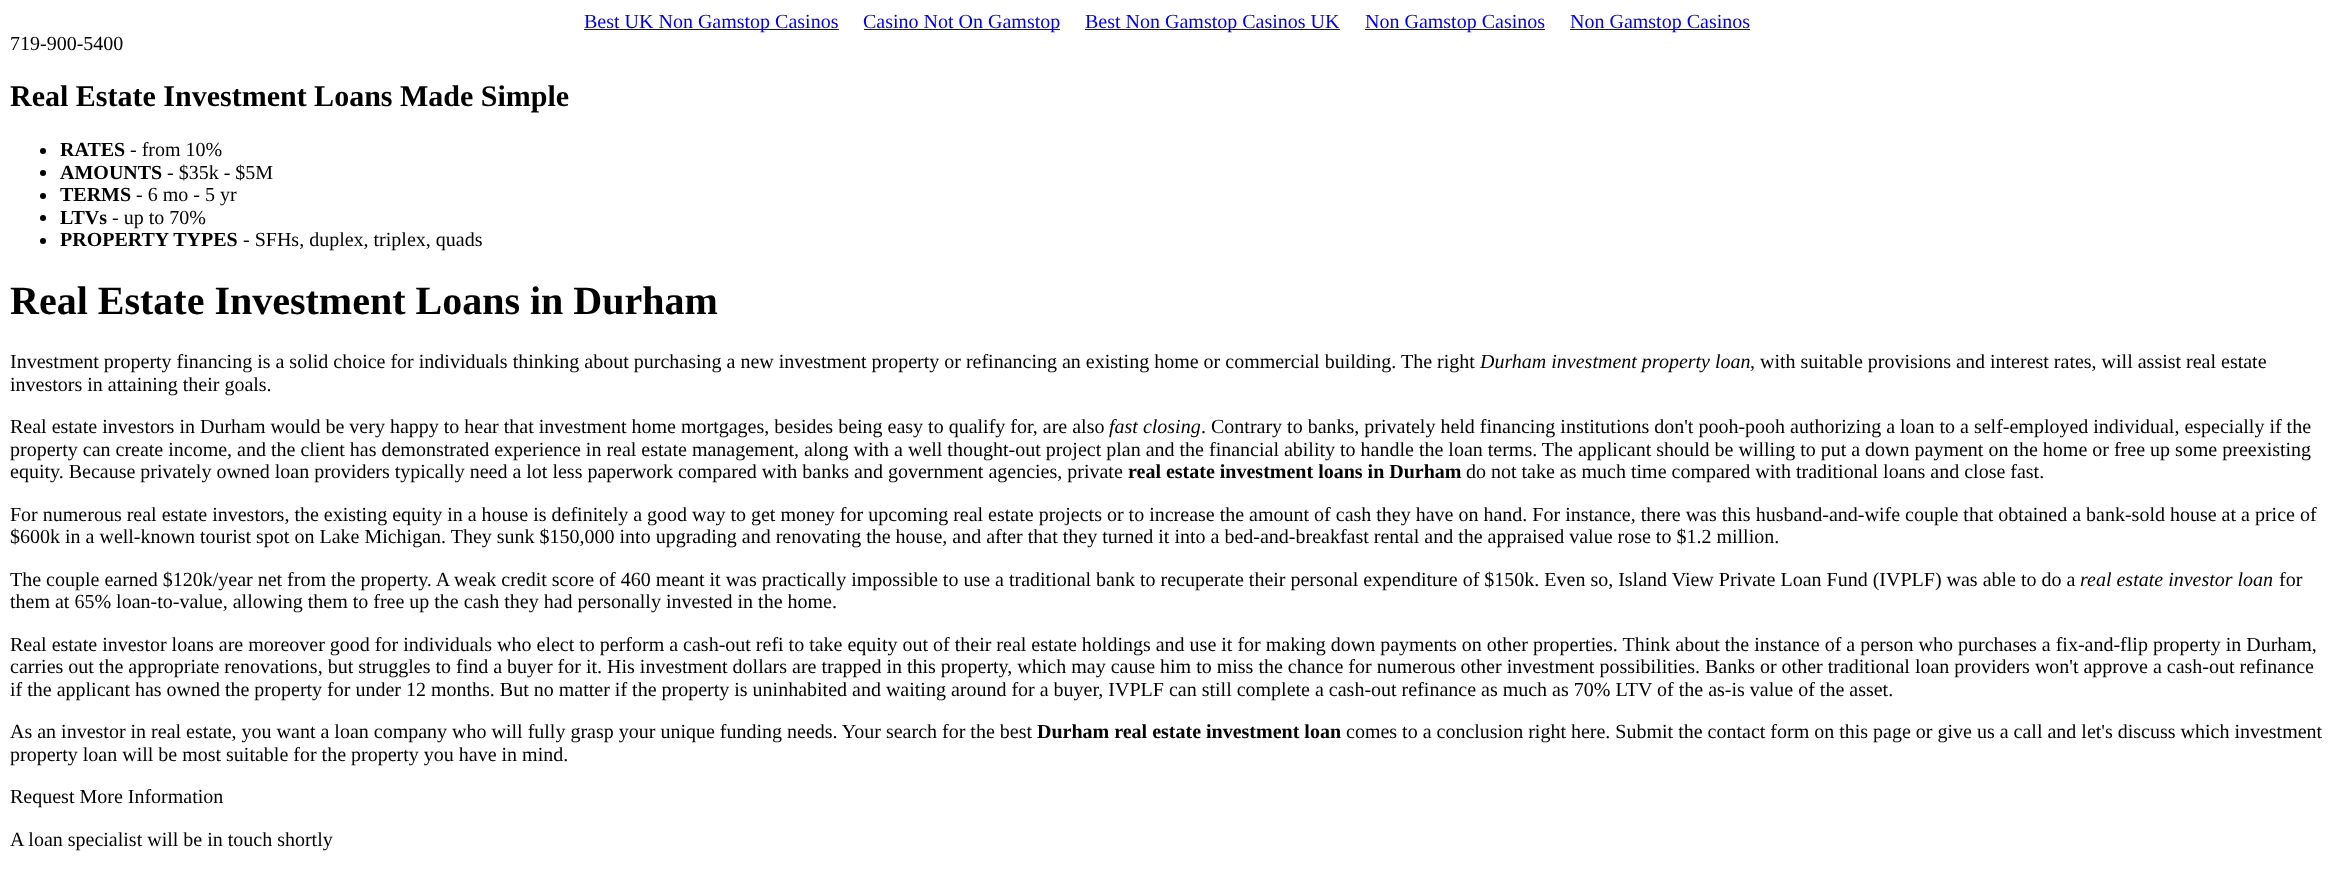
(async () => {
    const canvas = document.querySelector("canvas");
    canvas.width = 2333;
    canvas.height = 877;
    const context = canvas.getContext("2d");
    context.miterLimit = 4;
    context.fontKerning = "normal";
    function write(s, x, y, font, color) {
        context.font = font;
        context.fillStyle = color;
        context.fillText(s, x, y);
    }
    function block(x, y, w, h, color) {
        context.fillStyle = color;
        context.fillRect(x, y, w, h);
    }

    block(0, 0, 2333, 877, "rgb(255, 255, 255)");
    block(584, 29, 255, 1, "rgb(0, 0, 238)");
    write("Best UK Non Gamstop Casinos", 584, 28, "20px Liberation Serif", "rgb(0, 0, 238)");
    block(864, 29, 196, 1, "rgb(0, 0, 238)");
    write("Casino Not On Gamstop", 863, 28, "20px Liberation Serif", "rgb(0, 0, 238)");
    block(1085, 29, 255, 1, "rgb(0, 0, 238)");
    write("Best Non Gamstop Casinos UK", 1085, 28, "20px Liberation Serif", "rgb(0, 0, 238)");
    block(1365, 29, 180, 1, "rgb(0, 0, 238)");
    write("Non Gamstop Casinos", 1365, 28, "20px Liberation Serif", "rgb(0, 0, 238)");
    block(1570, 29, 180, 1, "rgb(0, 0, 238)");
    write("Non Gamstop Casinos", 1570, 28, "20px Liberation Serif", "rgb(0, 0, 238)");
    write("719-900-5400", 10, 50, "20px Liberation Serif", "rgb(0, 0, 0)");
    write("Real Estate Investment Loans Made Simple", 10, 106, "bold 30px Liberation Serif", "rgb(0, 0, 0)");
    context.beginPath();
    context.arc(43, 151, 3, 0, Math.PI * 2);
    context.fill();
    write("RATES", 60, 156, "bold 20px Liberation Serif", "rgb(0, 0, 0)");
    write("- from 10%", 130, 156, "20px Liberation Serif", "rgb(0, 0, 0)");
    context.beginPath();
    context.arc(43, 173, 3, 0, Math.PI * 2);
    context.fill();
    write("AMOUNTS", 60, 179, "bold 20px Liberation Serif", "rgb(0, 0, 0)");
    write("- $35k - $5M", 167, 179, "20px Liberation Serif", "rgb(0, 0, 0)");
    context.beginPath();
    context.arc(43, 196, 3, 0, Math.PI * 2);
    context.fill();
    write("TERMS", 60, 201, "bold 20px Liberation Serif", "rgb(0, 0, 0)");
    write("- 6 mo - 5 yr", 136, 201, "20px Liberation Serif", "rgb(0, 0, 0)");
    context.beginPath();
    context.arc(43, 218, 3, 0, Math.PI * 2);
    context.fill();
    write("LTVs", 60, 224, "bold 20px Liberation Serif", "rgb(0, 0, 0)");
    write("- up to 70%", 112, 224, "20px Liberation Serif", "rgb(0, 0, 0)");
    context.beginPath();
    context.arc(43, 241, 3, 0, Math.PI * 2);
    context.fill();
    write("PROPERTY TYPES", 60, 246, "bold 20px Liberation Serif", "rgb(0, 0, 0)");
    write("- SFHs, duplex, triplex, quads", 243, 246, "20px Liberation Serif", "rgb(0, 0, 0)");
    write("Real Estate Investment Loans in Durham", 10, 314, "bold 40px Liberation Serif", "rgb(0, 0, 0)");
    write("Investment property financing is a solid choice for individuals thinking about purchasing a new investment property or refinancing an existing home or commercial building. The right", 10, 368, "20px Liberation Serif", "rgb(0, 0, 0)");
    write("Durham investment property loan", 1480, 368, "italic 20px Liberation Serif", "rgb(0, 0, 0)");
    write(", with suitable provisions and interest rates, will assist real estate", 1750, 368, "20px Liberation Serif", "rgb(0, 0, 0)");
    write("investors in attaining their goals.", 10, 391, "20px Liberation Serif", "rgb(0, 0, 0)");
    write("Real estate investors in Durham would be very happy to hear that investment home mortgages, besides being easy to qualify for, are also", 10, 433, "20px Liberation Serif", "rgb(0, 0, 0)");
    write("fast closing", 1109, 433, "italic 20px Liberation Serif", "rgb(0, 0, 0)");
    write(". Contrary to banks, privately held financing institutions don't pooh-pooh authorizing a loan to a self-employed individual, especially if the", 1201, 433, "20px Liberation Serif", "rgb(0, 0, 0)");
    write("property can create income, and the client has demonstrated experience in real estate management, along with a well thought-out project plan and the financial ability to handle the loan terms. The applicant should be willing to put a down payment on the home or free up some preexisting", 10, 456, "20px Liberation Serif", "rgb(0, 0, 0)");
    write("equity. Because privately owned loan providers typically need a lot less paperwork compared with banks and government agencies, private", 10, 478, "20px Liberation Serif", "rgb(0, 0, 0)");
    write("real estate investment loans in Durham", 1128, 478, "bold 20px Liberation Serif", "rgb(0, 0, 0)");
    write("do not take as much time compared with traditional loans and close fast.", 1466, 478, "20px Liberation Serif", "rgb(0, 0, 0)");
    write("For numerous real estate investors, the existing equity in a house is definitely a good way to get money for upcoming real estate projects or to increase the amount of cash they have on hand. For instance, there was this husband-and-wife couple that obtained a bank-sold house at a price of", 10, 521, "20px Liberation Serif", "rgb(0, 0, 0)");
    write("$600k in a well-known tourist spot on Lake Michigan. They sunk $150,000 into upgrading and renovating the house, and after that they turned it into a bed-and-breakfast rental and the appraised value rose to $1.2 million.", 10, 543, "20px Liberation Serif", "rgb(0, 0, 0)");
    write("The couple earned $120k/year net from the property. A weak credit score of 460 meant it was practically impossible to use a traditional bank to recuperate their personal expenditure of $150k. Even so, Island View Private Loan Fund (IVPLF) was able to do a", 10, 586, "20px Liberation Serif", "rgb(0, 0, 0)");
    write("real estate investor loan", 2080, 586, "italic 20px Liberation Serif", "rgb(0, 0, 0)");
    write("for", 2279, 586, "20px Liberation Serif", "rgb(0, 0, 0)");
    write("them at 65% loan-to-value, allowing them to free up the cash they had personally invested in the home.", 10, 608, "20px Liberation Serif", "rgb(0, 0, 0)");
    write("Real estate investor loans are moreover good for individuals who elect to perform a cash-out refi to take equity out of their real estate holdings and use it for making down payments on other properties. Think about the instance of a person who purchases a fix-and-flip property in Durham,", 10, 651, "20px Liberation Serif", "rgb(0, 0, 0)");
    write("carries out the appropriate renovations, but struggles to find a buyer for it. His investment dollars are trapped in this property, which may cause him to miss the chance for numerous other investment possibilities. Banks or other traditional loan providers won't approve a cash-out refinance", 10, 673, "20px Liberation Serif", "rgb(0, 0, 0)");
    write("if the applicant has owned the property for under 12 months. But no matter if the property is uninhabited and waiting around for a buyer, IVPLF can still complete a cash-out refinance as much as 70% LTV of the as-is value of the asset.", 10, 696, "20px Liberation Serif", "rgb(0, 0, 0)");
    write("As an investor in real estate, you want a loan company who will fully grasp your unique funding needs. Your search for the best", 10, 738, "20px Liberation Serif", "rgb(0, 0, 0)");
    write("Durham real estate investment loan", 1037, 738, "bold 20px Liberation Serif", "rgb(0, 0, 0)");
    write("comes to a conclusion right here. Submit the contact form on this page or give us a call and let's discuss which investment", 1346, 738, "20px Liberation Serif", "rgb(0, 0, 0)");
    write("property loan will be most suitable for the property you have in mind.", 10, 761, "20px Liberation Serif", "rgb(0, 0, 0)");
    write("Request More Information", 10, 803, "20px Liberation Serif", "rgb(0, 0, 0)");
    write("A loan specialist will be in touch shortly", 10, 846, "20px Liberation Serif", "rgb(0, 0, 0)");
})();
